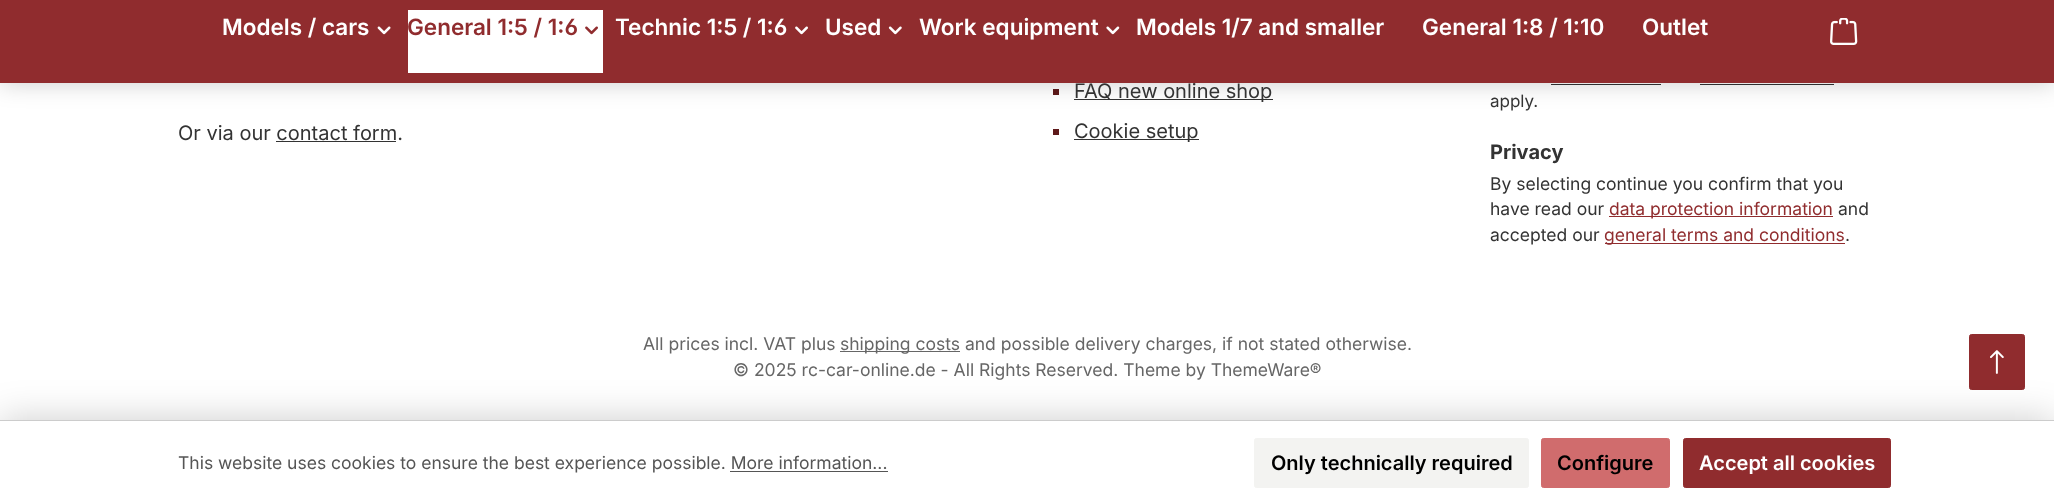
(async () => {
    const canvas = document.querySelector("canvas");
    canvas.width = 2054;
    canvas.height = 503;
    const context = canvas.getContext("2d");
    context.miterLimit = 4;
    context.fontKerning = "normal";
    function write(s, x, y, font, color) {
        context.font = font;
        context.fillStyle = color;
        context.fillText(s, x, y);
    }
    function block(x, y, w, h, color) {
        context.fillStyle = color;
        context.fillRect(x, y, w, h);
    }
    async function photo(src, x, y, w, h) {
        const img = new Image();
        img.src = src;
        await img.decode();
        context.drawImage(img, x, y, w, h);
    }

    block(0, 0, 2054, 503, "rgb(255, 255, 255)");
    block(1053, 89, 6, 6, "rgb(94, 25, 26)");
    block(1074, 99, 199, 1, "rgb(51, 51, 51)");
    block(1551, 84, 110, 1, "rgb(51, 51, 51)");
    block(1700, 84, 134, 1, "rgb(51, 51, 51)");
    context.fillStyle = "rgba(0, 0, 0, 0.2)";
    context.filter = "blur(12.5px)";
    context.beginPath();
    context.rect(0, 0, 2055, 83);
    context.fill();
    context.filter = "none";
    block(0, 0, 2054, 83, "rgb(144, 44, 46)");
    write("Models / cars", 222, 35, "600 22.5px Inter", "rgb(255, 255, 255)");
    await photo("media/1.png", 377, 26, 14, 9);
    block(408, 10, 195, 63, "rgb(255, 255, 255)");
    write("General 1:5 / 1:6", 407, 35, "600 22.5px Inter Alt", "rgb(144, 44, 46)");
    await photo("media/2.png", 585, 26, 13, 9);
    write("Technic 1:5 / 1:6", 615, 35, "600 22.5px Inter Alt", "rgb(255, 255, 255)");
    await photo("media/3.png", 795, 26, 13, 9);
    write("Used", 825, 35, "600 22.5px Inter", "rgb(255, 255, 255)");
    await photo("media/4.png", 888, 26, 14, 9);
    write("Work equipment", 919, 35, "600 22.5px Inter", "rgb(255, 255, 255)");
    await photo("media/5.png", 1106, 26, 14, 9);
    write("Models 1/7 and smaller", 1136, 35, "600 22.5px Inter", "rgb(255, 255, 255)");
    write("General 1:8 / 1:10", 1422, 35, "600 22.5px Inter", "rgb(255, 255, 255)");
    write("Outlet", 1642, 35, "600 22.5px Inter", "rgb(255, 255, 255)");
    await photo("media/6.png", 1830, 18, 28, 27);
    write("Or via our contact form.", 178, 140, "20px Inter", "rgb(51, 51, 51)");
    block(276, 141, 120, 1, "rgb(51, 51, 51)");
    write("FAQ new online shop", 1074, 98, "20px Inter", "rgb(51, 51, 51)");
    block(1053, 129, 6, 6, "rgb(94, 25, 26)");
    block(1074, 139, 125, 1, "rgb(51, 51, 51)");
    write("Cookie setup", 1074, 138, "20px Inter", "rgb(51, 51, 51)");
    write("apply.", 1490, 107, "17px Inter", "rgb(51, 51, 51)");
    write("Privacy", 1490, 159, "bold 20px Inter", "rgb(51, 51, 51)");
    write("By selecting continue you confirm that you", 1490, 190, "17.5px Inter", "rgb(51, 51, 51)");
    write("have read our", 1490, 215, "17.5px Inter", "rgb(51, 51, 51)");
    block(1609, 216, 224, 1, "rgb(144, 44, 46)");
    write("data protection information", 1609, 215, "17.5px Inter", "rgb(144, 44, 46)");
    write("and", 1838, 215, "17.5px Inter", "rgb(51, 51, 51)");
    write("accepted our", 1490, 241, "17.5px Inter", "rgb(51, 51, 51)");
    block(1605, 243, 240, 1, "rgb(144, 44, 46)");
    write("general terms and conditions", 1604, 241, "17.5px Inter", "rgb(144, 44, 46)");
    write(".", 1845, 241, "17.5px Inter", "rgb(51, 51, 51)");
    write("All prices incl. VAT plus", 643, 350, "17.5px Inter", "rgb(102, 102, 102)");
    block(840, 351, 120, 1, "rgb(102, 102, 102)");
    write("shipping costs and possible delivery charges, if not stated otherwise.", 840, 350, "17.5px Inter", "rgb(102, 102, 102)");
    write("© 2025 rc-car-online.de - All Rights Reserved. Theme by ThemeWare®", 733, 376, "17.5px Inter", "rgb(102, 102, 102)");
    context.fillStyle = "rgb(144, 44, 46)";
    context.beginPath();
    context.roundRect(1969.5, 334.5, 55, 55, 2);
    context.fill();
    context.strokeStyle = "rgb(144, 44, 46)";
    context.stroke();
    await photo("media/7.png", 1990, 350, 14, 24);
    context.fillStyle = "rgba(0, 0, 0, 0.2)";
    context.filter = "blur(19px)";
    context.beginPath();
    context.rect(0, 420, 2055, 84);
    context.fill();
    context.filter = "none";
    block(0, 421, 2054, 82, "rgb(255, 255, 255)");
    block(0, 420, 2054, 1, "rgb(204, 204, 204)");
    write("This website uses cookies to ensure the best experience possible. More information...", 178, 469, "17.5px Inter", "rgb(85, 85, 85)");
    block(730, 471, 158, 1, "rgb(85, 85, 85)");
    context.fillStyle = "rgb(243, 243, 241)";
    context.beginPath();
    context.roundRect(1254.5, 438.5, 274, 49, 2);
    context.fill();
    context.strokeStyle = "rgb(243, 243, 241)";
    context.stroke();
    write("Only technically required", 1271, 470, "600 20px Inter", "rgb(0, 0, 0)");
    context.fillStyle = "rgb(208, 108, 109)";
    context.beginPath();
    context.roundRect(1541.5, 438.5, 128, 49, 2);
    context.fill();
    context.strokeStyle = "rgb(208, 108, 109)";
    context.stroke();
    write("Configure", 1557, 470, "600 20px Inter", "rgb(0, 0, 0)");
    context.fillStyle = "rgb(144, 44, 46)";
    context.beginPath();
    context.roundRect(1683.5, 438.5, 207, 49, 2);
    context.fill();
    context.strokeStyle = "rgb(144, 44, 46)";
    context.stroke();
    write("Accept all cookies", 1699, 470, "600 20px Inter", "rgb(255, 255, 255)");
})();
